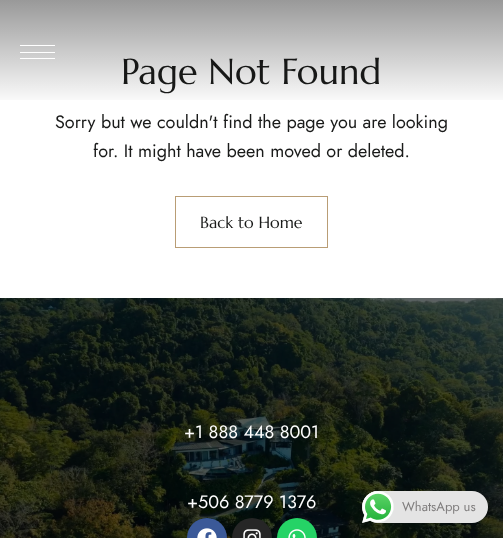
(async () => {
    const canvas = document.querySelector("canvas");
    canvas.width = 503;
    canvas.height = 538;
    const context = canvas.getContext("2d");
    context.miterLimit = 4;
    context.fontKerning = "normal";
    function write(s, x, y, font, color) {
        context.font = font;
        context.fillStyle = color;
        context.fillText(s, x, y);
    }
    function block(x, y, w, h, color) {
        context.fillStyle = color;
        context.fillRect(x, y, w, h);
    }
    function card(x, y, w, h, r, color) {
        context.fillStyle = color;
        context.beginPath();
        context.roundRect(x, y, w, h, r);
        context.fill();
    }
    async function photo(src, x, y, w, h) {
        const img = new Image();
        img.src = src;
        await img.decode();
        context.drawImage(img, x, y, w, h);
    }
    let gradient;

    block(0, 0, 503, 538, "rgb(255, 255, 255)");
    write("Page Not Found", 121, 84, "36px Marcellus", "rgb(26, 27, 26)");
    gradient = context.createLinearGradient(252, 0, 252, 106);
    gradient.addColorStop(0, "rgba(0, 0, 0, 0.4)");
    gradient.addColorStop(1, "rgba(0, 0, 0, 0)");
    context.fillStyle = gradient;
    context.fillRect(0, 0, 503, 100);
    block(20, 45, 35, 1, "rgb(255, 255, 255)");
    block(20, 58, 35, 1, "rgb(255, 255, 255)");
    block(20, 52, 35, 1, "rgb(255, 255, 255)");
    write("Sorry but we couldn't find the page you are looking", 55, 128, "18px Jost", "rgb(26, 27, 26)");
    write("for. It might have been moved or deleted.", 93, 157, "18px Jost", "rgb(26, 27, 26)");
    context.strokeStyle = "rgb(185, 157, 117)";
    context.strokeRect(175.5, 196.5, 152, 51);
    write("Back to Home", 200, 228, "16px Marcellus", "rgb(26, 27, 26)");
    await photo("media/1.png", 0, 298, 503, 240);
    write("+1 888 448 8001", 184, 438, "18px Jost", "rgb(255, 255, 255)");
    write("+506 8779 1376", 187, 508, "18px Jost", "rgb(255, 255, 255)");
    context.fillStyle = "rgb(59, 89, 152)";
    context.beginPath();
    context.arc(207, 538, 20, 0, Math.PI * 2);
    context.fill();
    await photo("media/2.png", 197, 528, 20, 10);
    context.fillStyle = "rgb(38, 38, 38)";
    context.beginPath();
    context.arc(252, 538, 20, 0, Math.PI * 2);
    context.fill();
    await photo("media/3.png", 243, 529, 18, 9);
    context.fillStyle = "rgb(37, 211, 102)";
    context.beginPath();
    context.arc(297, 538, 20, 0, Math.PI * 2);
    context.fill();
    await photo("media/4.png", 288, 529, 18, 9);
    card(362, 491, 126, 32, 16, "rgb(228, 228, 228)");
    await photo("media/5.png", 362, 491, 32, 32);
    write("WhatsApp us", 402, 511, "13px Jost", "rgb(127, 125, 125)");
})();
